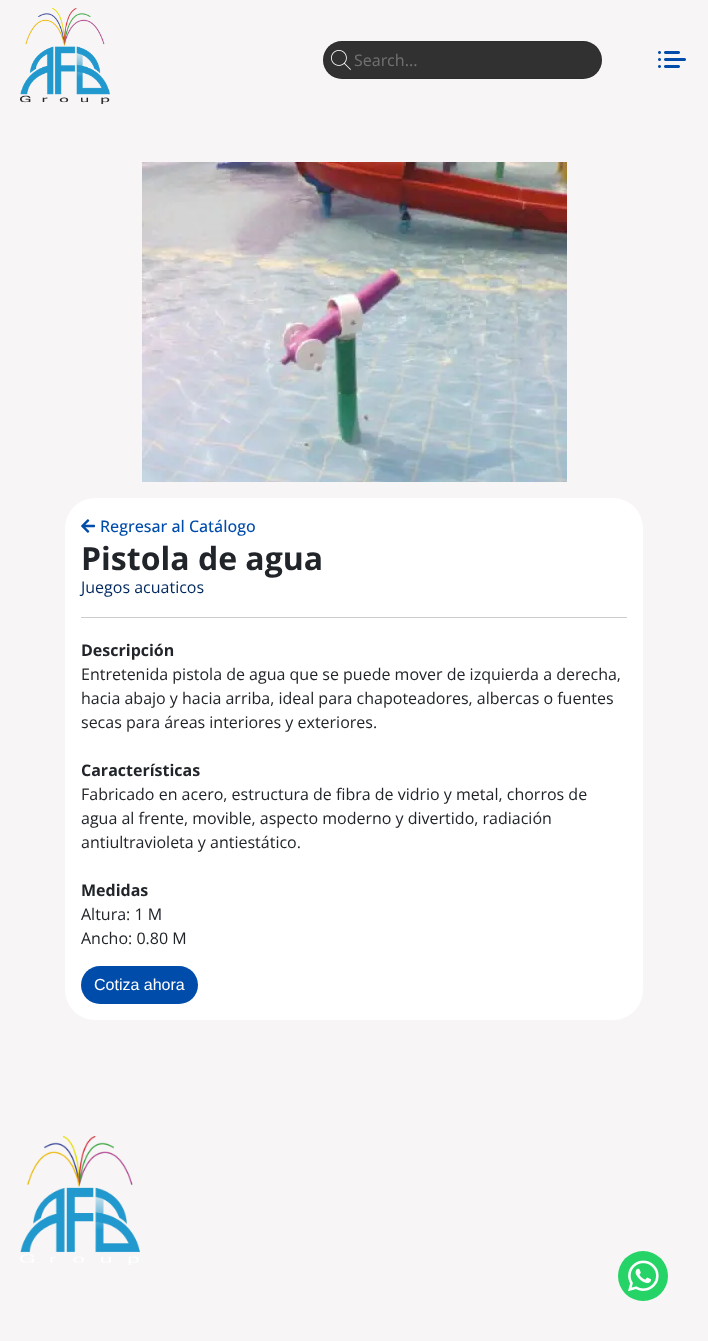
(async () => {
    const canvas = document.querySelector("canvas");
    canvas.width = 708;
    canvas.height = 1341;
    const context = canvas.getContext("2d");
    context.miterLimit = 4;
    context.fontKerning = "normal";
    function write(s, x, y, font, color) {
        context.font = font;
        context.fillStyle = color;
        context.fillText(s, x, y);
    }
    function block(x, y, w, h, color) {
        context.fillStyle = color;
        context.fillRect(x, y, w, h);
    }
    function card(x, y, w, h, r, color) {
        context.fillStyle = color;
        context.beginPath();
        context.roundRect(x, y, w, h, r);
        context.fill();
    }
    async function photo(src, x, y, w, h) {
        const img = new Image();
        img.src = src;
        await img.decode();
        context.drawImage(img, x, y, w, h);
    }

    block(0, 0, 708, 1341, "rgb(247, 245, 245)");
    await photo("media/1.png", 20, 8, 90, 96);
    card(323, 41, 279, 38, 19, "rgb(49, 49, 49)");
    context.beginPath();
    context.roundRect(323.5, 41.5, 278, 37, 18.5);
    context.strokeStyle = "rgba(0, 0, 0, 0.1)";
    context.stroke();
    await photo("media/2.png", 331, 50, 20, 20);
    write("Search...", 354, 66, "16px Noto Sans", "rgb(111, 111, 111)");
    await photo("media/3.png", 658, 51, 28, 17);
    await photo("media/4.png", 142, 162, 425, 320);
    card(65, 498, 578, 522, 30, "rgb(255, 255, 255)");
    await photo("media/5.png", 81, 519, 14, 14);
    write("Regresar al Catálogo", 100, 532, "500 16px Open Sans", "rgb(0, 76, 170)");
    write("Pistola de agua", 81, 570, "bold 32px Open Sans", "rgb(33, 37, 41)");
    write("Juegos acuaticos", 81, 593, "16px Open Sans", "rgb(0, 40, 94)");
    block(81, 617, 546, 1, "rgb(204, 204, 204)");
    write("Descripción", 81, 656, "bold 16px Open Sans", "rgb(33, 37, 41)");
    write("Entretenida pistola de agua que se puede mover de izquierda a derecha,", 81, 680, "16px Open Sans", "rgb(33, 37, 41)");
    write("hacia abajo y hacia arriba, ideal para chapoteadores, albercas o fuentes", 81, 704, "16px Open Sans", "rgb(33, 37, 41)");
    write("secas para áreas interiores y exteriores.", 81, 728, "16px Open Sans", "rgb(33, 37, 41)");
    write("Características", 81, 776, "bold 16px Open Sans", "rgb(33, 37, 41)");
    write("Fabricado en acero, estructura de fibra de vidrio y metal, chorros de", 81, 800, "16px Open Sans", "rgb(33, 37, 41)");
    write("agua al frente, movible, aspecto moderno y divertido, radiación", 81, 824, "16px Open Sans", "rgb(33, 37, 41)");
    write("antiultravioleta y antiestático.", 81, 848, "16px Open Sans", "rgb(33, 37, 41)");
    write("Medidas", 81, 896, "bold 16px Open Sans", "rgb(33, 37, 41)");
    write("Altura: 1 M", 81, 920, "16px Open Sans", "rgb(33, 37, 41)");
    write("Ancho: 0.80 M", 81, 944, "16px Open Sans", "rgb(33, 37, 41)");
    card(81, 966, 117, 38, 19, "rgb(0, 76, 170)");
    write("Cotiza ahora", 94, 990, "16px Liberation Sans", "rgb(255, 255, 255)");
    await photo("media/6.png", 20, 1136, 120, 129);
    context.fillStyle = "rgb(37, 211, 102)";
    context.beginPath();
    context.arc(643, 1276, 25, 0, Math.PI * 2);
    context.fill();
    await photo("media/7.png", 628, 1260, 31, 32);
})();
